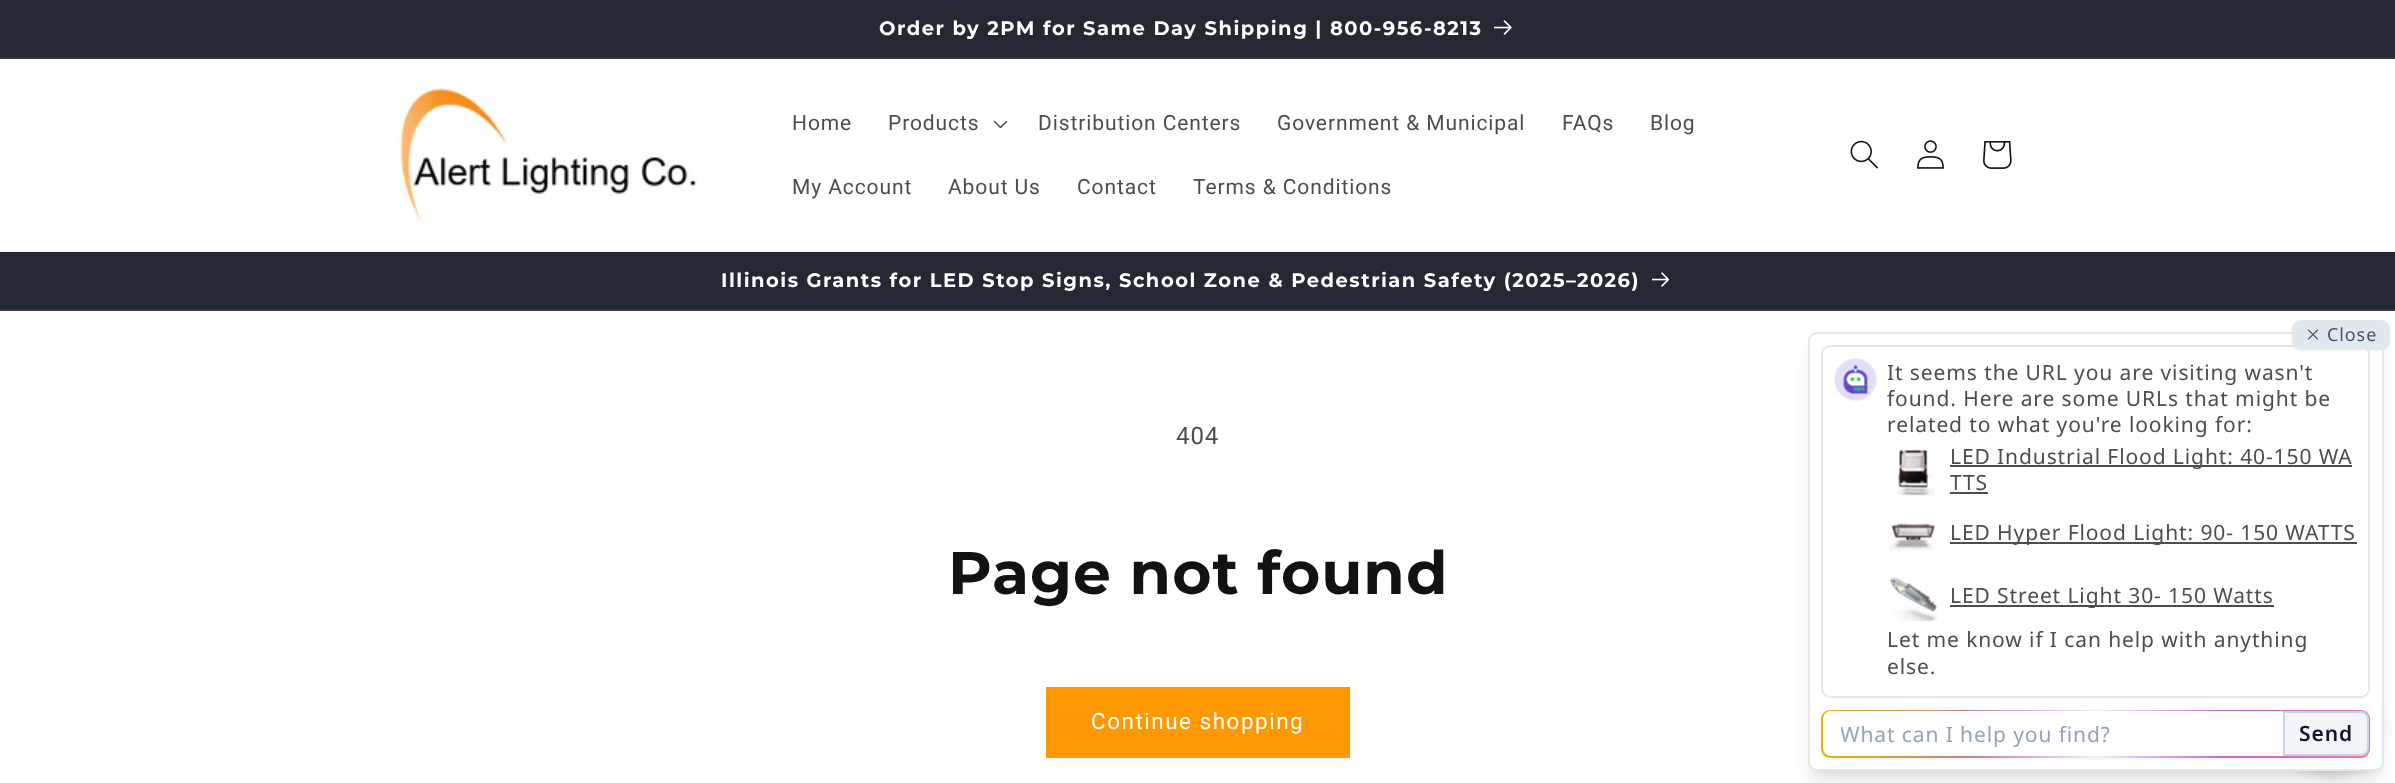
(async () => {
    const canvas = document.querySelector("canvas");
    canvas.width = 2395;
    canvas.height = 783;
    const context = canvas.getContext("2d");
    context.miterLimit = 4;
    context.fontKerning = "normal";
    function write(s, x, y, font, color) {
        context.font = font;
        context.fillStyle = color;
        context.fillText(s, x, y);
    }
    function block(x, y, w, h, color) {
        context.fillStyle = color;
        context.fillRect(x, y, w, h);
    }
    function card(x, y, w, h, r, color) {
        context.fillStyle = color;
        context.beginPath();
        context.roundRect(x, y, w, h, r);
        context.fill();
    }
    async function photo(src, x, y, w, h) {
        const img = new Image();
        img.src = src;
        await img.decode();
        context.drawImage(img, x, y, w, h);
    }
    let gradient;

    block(0, 0, 2395, 783, "rgb(255, 255, 255)");
    block(0, 251, 2395, 1, "rgb(236, 236, 236)");
    block(0, 0, 2395, 57, "rgb(36, 40, 51)");
    block(0, 57, 2395, 2, "rgb(54, 57, 67)");
    context.letterSpacing = "1.5px";
    write("Order by 2PM for Same Day Shipping | 800-956-8213", 879, 35, "bold 19.5px Montserrat", "rgb(255, 255, 255)");
    await photo("media/1.png", 1494, 20, 18, 15);
    await photo("media/2.png", 398, 88, 299, 134);
    context.letterSpacing = "0.9px";
    write("Home", 792, 130, "21px Roboto", "rgb(77, 77, 77)");
    write("Products", 888, 130, "21px Roboto", "rgb(77, 77, 77)");
    await photo("media/3.png", 993, 120, 15, 9);
    write("Distribution Centers", 1038, 130, "21px Roboto", "rgb(77, 77, 77)");
    write("Government & Municipal", 1277, 130, "21px Roboto", "rgb(77, 77, 77)");
    write("FAQs", 1562, 130, "21px Roboto", "rgb(77, 77, 77)");
    write("Blog", 1650, 130, "21px Roboto", "rgb(77, 77, 77)");
    write("My Account", 792, 194, "21px Roboto", "rgb(77, 77, 77)");
    write("About Us", 948, 194, "21px Roboto", "rgb(77, 77, 77)");
    write("Contact", 1077, 194, "21px Roboto", "rgb(77, 77, 77)");
    write("Terms & Conditions", 1193, 194, "21px Roboto", "rgb(77, 77, 77)");
    await photo("media/4.png", 1850, 140, 28, 29);
    await photo("media/5.png", 1917, 140, 27, 29);
    await photo("media/6.png", 1983, 141, 29, 28);
    block(0, 253, 2395, 56, "rgb(36, 40, 51)");
    block(0, 252, 2395, 1, "rgb(35, 38, 48)");
    block(0, 309, 2395, 2, "rgb(54, 57, 67)");
    context.letterSpacing = "1.5px";
    write("Illinois Grants for LED Stop Signs, School Zone & Pedestrian Safety (2025–2026)", 721, 287, "bold 19.5px Montserrat", "rgb(255, 255, 255)");
    await photo("media/7.png", 1652, 272, 18, 15);
    context.letterSpacing = "0.9px";
    write("404", 1176, 444, "24px Roboto", "rgb(77, 77, 77)");
    write("Page not found", 948, 594, "bold 60px Montserrat", "rgb(18, 18, 18)");
    block(1046, 687, 304, 71, "rgb(254, 153, 1)");
    context.letterSpacing = "1.5px";
    write("Continue shopping", 1091, 729, "22.5px Roboto", "rgb(255, 255, 255)");
    context.fillStyle = "rgba(0, 0, 0, 0.1)";
    context.filter = "blur(4.5px)";
    context.beginPath();
    context.roundRect(1814, 344, 564, 427, 3);
    context.fill();
    context.filter = "none";
    context.filter = "blur(11px)";
    context.beginPath();
    context.roundRect(1812, 351, 567, 431, 5);
    context.fill();
    context.filter = "none";
    context.fillStyle = "rgba(0, 0, 0, 0.25)";
    context.filter = "blur(9px)";
    context.beginPath();
    context.roundRect(2288, 687, 84, 84, 42);
    context.fill();
    context.filter = "none";
    context.fillStyle = "rgb(255, 255, 255)";
    context.beginPath();
    context.roundRect(1809, 333, 574, 437, 8);
    context.fill();
    context.strokeStyle = "rgb(229, 231, 235)";
    context.lineWidth = 2;
    context.stroke();
    context.beginPath();
    context.roundRect(1822, 346, 547, 351, 8);
    context.stroke();
    context.fillStyle = "rgba(0, 0, 0, 0.05)";
    context.filter = "blur(1.5px)";
    context.beginPath();
    context.roundRect(2292, 321, 98, 30, 9);
    context.fill();
    context.filter = "none";
    card(2292, 320, 98, 30, 9, "rgb(226, 232, 240)");
    context.beginPath();
    context.moveTo(2308.5, 339);
    context.lineTo(2317.5, 330);
    context.moveTo(2308.5, 330);
    context.lineTo(2317.5, 339);
    context.strokeStyle = "rgb(71, 85, 105)";
    context.lineWidth = 1.1;
    context.lineCap = "round";
    context.lineJoin = "round";
    context.stroke();
    context.letterSpacing = "0.9px";
    write("Close", 2327, 341, "18px Noto Sans", "rgb(71, 85, 105)");
    await photo("media/8.png", 1834, 358, 43, 43);
    write("It seems the URL you are visiting wasn't", 1887, 380, "21px Noto Sans", "rgb(77, 77, 77)");
    write("found. Here are some URLs that might be", 1887, 406, "21px Noto Sans", "rgb(77, 77, 77)");
    write("related to what you're looking for:", 1887, 432, "21px Noto Sans", "rgb(77, 77, 77)");
    await photo("media/9.png", 1898, 449, 37, 47);
    block(1950, 465, 402, 2, "rgb(77, 77, 77)");
    write("LED Industrial Flood Light: 40-150 WA", 1950, 464, "21px Noto Sans", "rgb(77, 77, 77)");
    write("TTS", 1950, 490, "21px Noto Sans", "rgb(77, 77, 77)");
    block(1950, 492, 38, 2, "rgb(77, 77, 77)");
    await photo("media/10.png", 1889, 523, 46, 28);
    block(1950, 542, 407, 2, "rgb(77, 77, 77)");
    write("LED Hyper Flood Light: 90- 150 WATTS", 1950, 540, "21px Noto Sans", "rgb(77, 77, 77)");
    await photo("media/11.png", 1890, 577, 48, 45);
    block(1950, 605, 324, 2, "rgb(77, 77, 77)");
    write("LED Street Light 30- 150 Watts", 1950, 603, "21px Noto Sans", "rgb(77, 77, 77)");
    write("Let me know if I can help with anything", 1887, 647, "21px Noto Sans", "rgb(77, 77, 77)");
    write("else.", 1887, 674, "21px Noto Sans", "rgb(77, 77, 77)");
    context.fillStyle = "rgba(0, 0, 0, 0.05)";
    context.filter = "blur(1.5px)";
    context.beginPath();
    context.roundRect(1821, 711, 549, 48, 9);
    context.fill();
    context.filter = "none";
    gradient = context.createLinearGradient(1821, 734, 2370, 734);
    gradient.addColorStop(0, "rgb(234, 179, 8)");
    gradient.addColorStop(0.5, "rgb(168, 85, 247)");
    gradient.addColorStop(1, "rgb(244, 114, 182)");
    context.fillStyle = gradient;
    context.beginPath();
    context.roundRect(1821, 710, 549, 48, 9);
    context.fill();
    gradient = context.createLinearGradient(1965, 734, 2226, 734);
    gradient.addColorStop(0, "rgba(255, 255, 255, 0)");
    gradient.addColorStop(0.5, "rgba(255, 255, 255, 0.9)");
    gradient.addColorStop(1, "rgba(255, 255, 255, 0)");
    context.fillStyle = gradient;
    context.fillRect(1968, 710, 255, 48);
    context.fillStyle = "rgb(255, 255, 255)";
    context.beginPath();
    context.roundRect(1823, 711, 462, 45, [8, 0, 0, 8]);
    context.fill();
    context.save();
    context.beginPath();
    context.rect(1841, 720, 427, 29);
    context.clip();
    write("What can I help you find?", 1840, 742, "21px Noto Sans", "rgb(148, 163, 184)");
    context.restore();
    context.fillStyle = "rgb(241, 245, 249)";
    context.beginPath();
    context.roundRect(2284, 712, 84, 43, [0, 7, 7, 0]);
    context.fill();
    context.strokeStyle = "rgb(203, 213, 225)";
    context.lineWidth = 2;
    context.lineJoin = "miter";
    context.stroke();
    write("Send", 2299, 741, "600 21px Noto Sans", "rgb(15, 23, 42)");
})();
